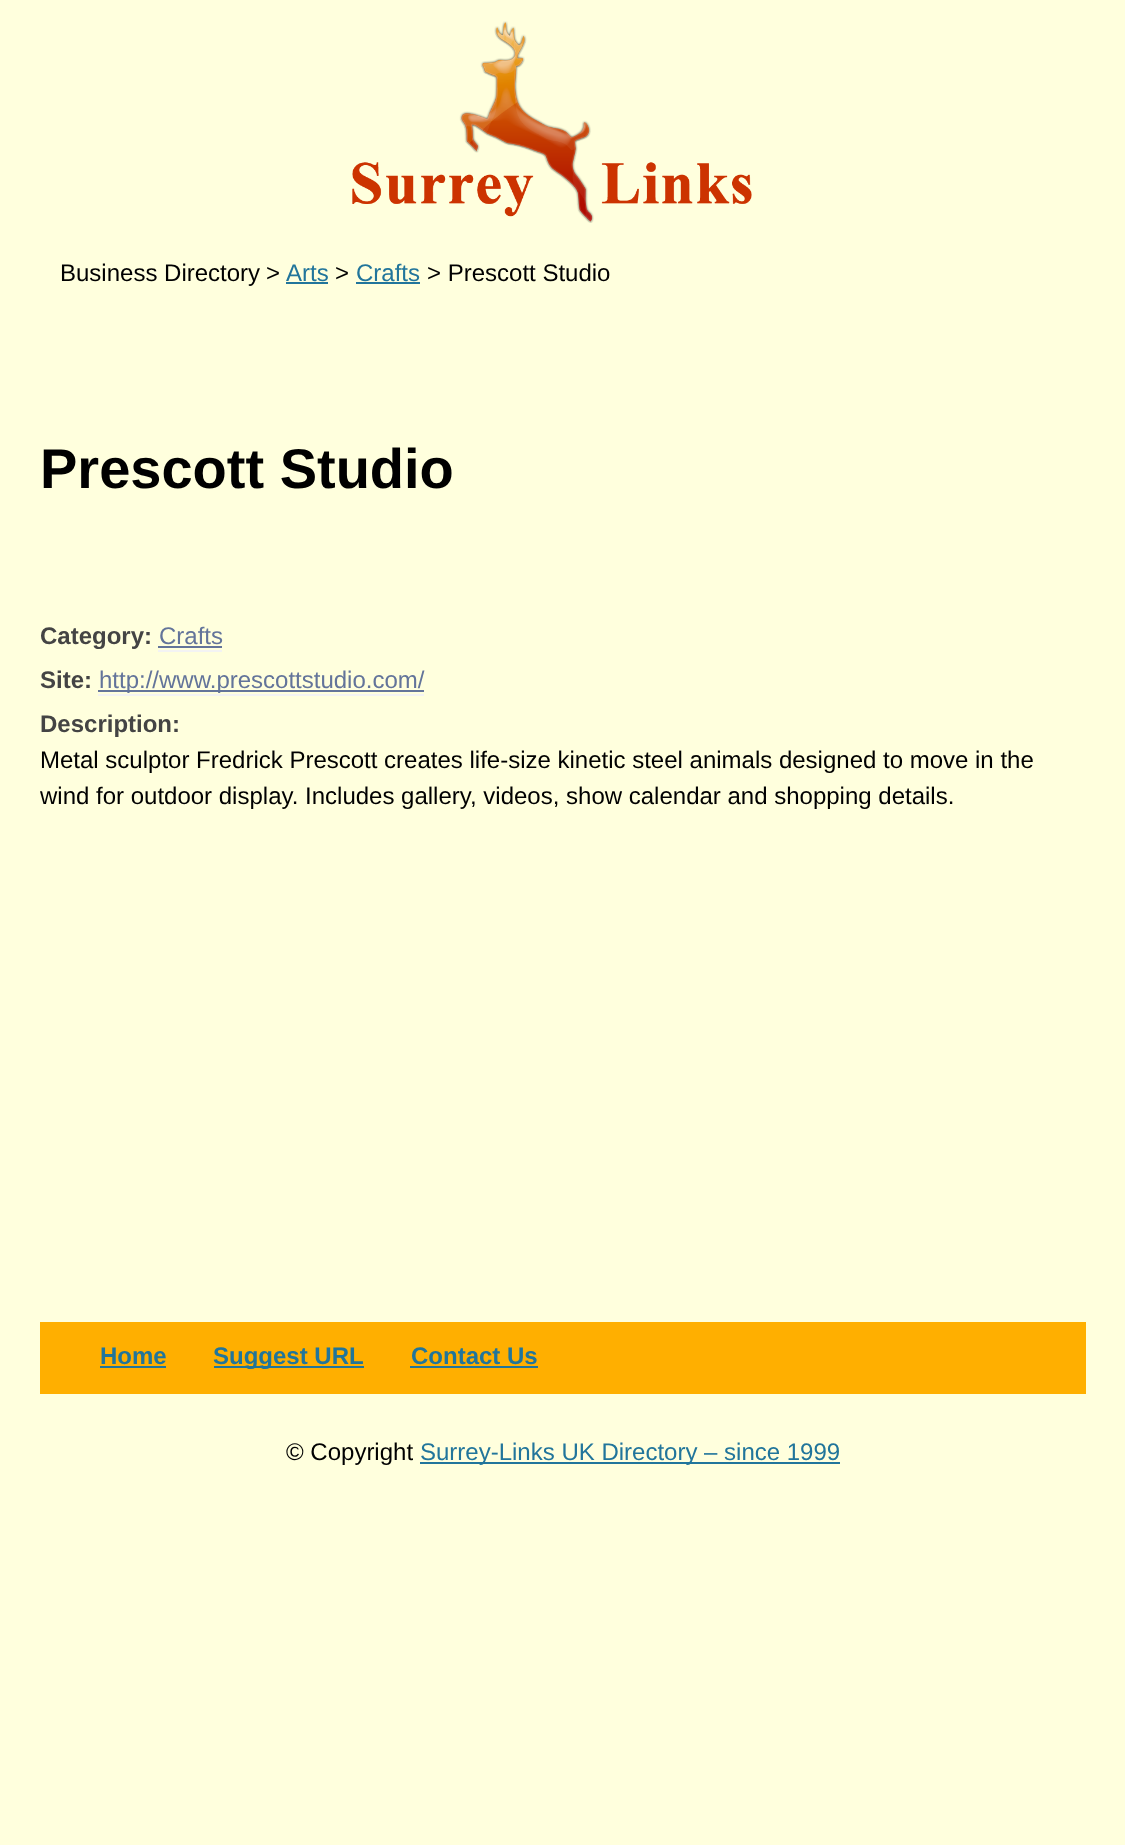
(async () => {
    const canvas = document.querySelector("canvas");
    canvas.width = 1125;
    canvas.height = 1845;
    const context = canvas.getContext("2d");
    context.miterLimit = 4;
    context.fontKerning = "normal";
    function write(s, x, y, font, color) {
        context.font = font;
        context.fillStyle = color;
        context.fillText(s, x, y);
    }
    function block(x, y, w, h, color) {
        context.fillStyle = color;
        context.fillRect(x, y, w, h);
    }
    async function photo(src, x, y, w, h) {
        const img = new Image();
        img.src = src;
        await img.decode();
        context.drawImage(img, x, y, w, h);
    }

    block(0, 0, 1125, 1845, "rgb(255, 255, 221)");
    await photo("media/1.png", 352, 21, 400, 202);
    write("Business Directory", 60, 281, "24px Liberation Sans", "rgb(0, 0, 0)");
    write(">", 266, 281, "24px Liberation Sans", "rgb(0, 0, 0)");
    write("Arts", 286, 281, "24px Liberation Sans", "rgb(33, 117, 155)");
    block(286, 282, 42, 2, "rgb(33, 117, 155)");
    write(">", 335, 281, "24px Liberation Sans", "rgb(0, 0, 0)");
    write("Crafts", 356, 281, "24px Liberation Sans", "rgb(33, 117, 155)");
    block(356, 282, 64, 2, "rgb(33, 117, 155)");
    write("> Prescott Studio", 427, 281, "24px Liberation Sans", "rgb(0, 0, 0)");
    write("Prescott Studio", 40, 488, "bold 56px Liberation Sans", "rgb(0, 0, 0)");
    write("Category:", 40, 644, "bold 24px Liberation Sans", "rgb(68, 68, 68)");
    write("Crafts", 159, 644, "24px Liberation Sans", "rgb(99, 116, 154)");
    block(158, 650, 64, 2, "rgb(243, 243, 243)");
    block(158, 646, 64, 2, "rgb(99, 116, 154)");
    write("Site:", 40, 688, "bold 24px Liberation Sans", "rgb(68, 68, 68)");
    block(98, 690, 326, 2, "rgb(99, 116, 154)");
    write("http://www.prescottstudio.com/", 99, 688, "24px Liberation Sans", "rgb(99, 116, 154)");
    block(98, 694, 326, 2, "rgb(243, 243, 243)");
    write("Description:", 40, 732, "bold 24px Liberation Sans", "rgb(68, 68, 68)");
    write("Metal sculptor Fredrick Prescott creates life-size kinetic steel animals designed to move in the", 40, 768, "24px Liberation Sans", "rgb(0, 0, 0)");
    write("wind for outdoor display. Includes gallery, videos, show calendar and shopping details.", 40, 804, "24px Liberation Sans", "rgb(0, 0, 0)");
    block(40, 1322, 1046, 72, "rgb(255, 175, 0)");
    write("Home", 100, 1364, "bold 24px Liberation Sans", "rgb(33, 117, 155)");
    block(100, 1366, 66, 2, "rgb(33, 117, 155)");
    block(214, 1366, 150, 2, "rgb(33, 117, 155)");
    write("Suggest URL", 213, 1364, "bold 24px Liberation Sans", "rgb(33, 117, 155)");
    write("Contact Us", 411, 1364, "bold 24px Liberation Sans", "rgb(33, 117, 155)");
    block(410, 1366, 128, 2, "rgb(33, 117, 155)");
    write("© Copyright", 286, 1460, "24px Liberation Sans", "rgb(0, 0, 0)");
    block(420, 1462, 420, 2, "rgb(33, 117, 155)");
    write("Surrey-Links UK Directory – since 1999", 420, 1460, "24px Liberation Sans", "rgb(33, 117, 155)");
})();
